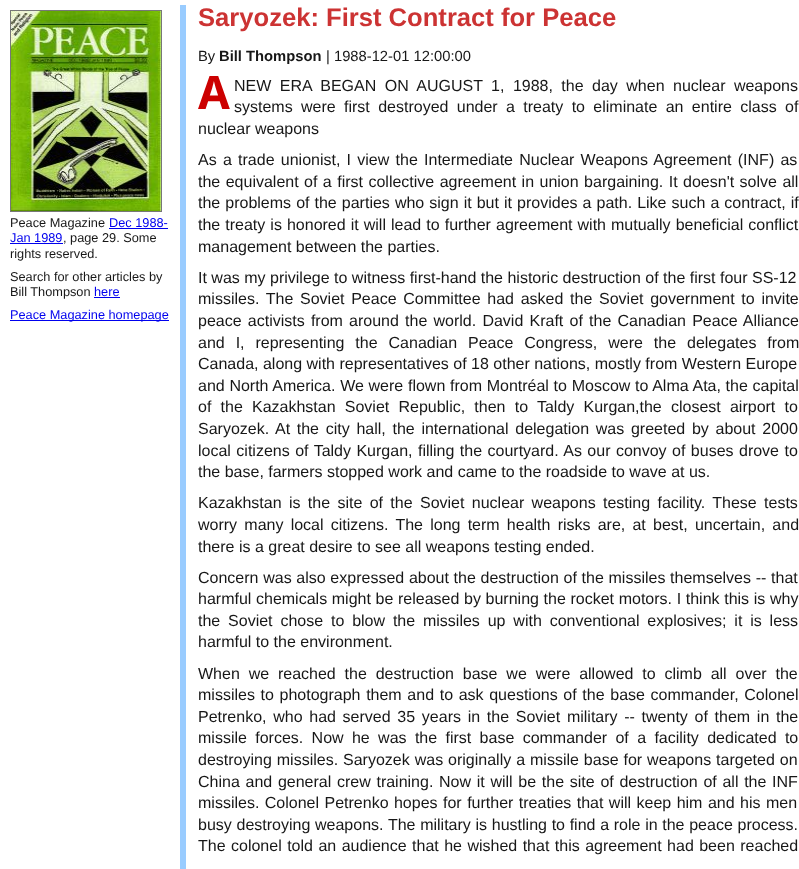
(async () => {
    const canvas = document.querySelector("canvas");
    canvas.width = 799;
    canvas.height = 869;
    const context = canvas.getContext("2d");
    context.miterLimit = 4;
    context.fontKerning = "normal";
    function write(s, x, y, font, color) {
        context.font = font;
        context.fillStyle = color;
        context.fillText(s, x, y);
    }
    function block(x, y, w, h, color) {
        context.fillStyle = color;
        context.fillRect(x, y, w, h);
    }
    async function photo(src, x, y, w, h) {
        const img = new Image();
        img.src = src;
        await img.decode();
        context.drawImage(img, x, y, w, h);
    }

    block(0, 0, 799, 869, "rgb(255, 255, 255)");
    context.strokeStyle = "rgb(119, 119, 119)";
    context.strokeRect(10.5, 10.5, 151, 201);
    await photo("media/1.png", 11, 11, 150, 200);
    write("Peace Magazine", 10, 227, "12.75px Liberation Sans", "rgb(23, 23, 23)");
    write("Dec 1988-", 109, 227, "12.75px Liberation Sans", "rgb(0, 0, 238)");
    block(109, 228, 59, 1, "rgb(0, 0, 238)");
    write("Jan 1989", 10, 242, "12.75px Liberation Sans", "rgb(0, 0, 238)");
    block(10, 243, 53, 1, "rgb(0, 0, 238)");
    write(", page 29. Some", 63, 242, "12.75px Liberation Sans", "rgb(23, 23, 23)");
    write("rights reserved.", 10, 258, "12.75px Liberation Sans", "rgb(23, 23, 23)");
    write("Search for other articles by", 10, 281, "12.75px Liberation Sans", "rgb(23, 23, 23)");
    write("Bill Thompson", 10, 296, "12.75px Liberation Sans", "rgb(23, 23, 23)");
    write("here", 94, 296, "12.75px Liberation Sans", "rgb(0, 0, 238)");
    block(94, 297, 26, 1, "rgb(0, 0, 238)");
    block(10, 320, 159, 1, "rgb(0, 0, 238)");
    write("Peace Magazine homepage", 10, 319, "12.75px Liberation Sans", "rgb(0, 0, 238)");
    block(180, 5, 6, 864, "rgb(153, 204, 255)");
    write("Saryozek: First Contract for Peace", 198, 26, "bold 25.6px Liberation Sans", "rgb(204, 51, 51)");
    write("By", 198, 61, "14.75px Liberation Sans", "rgb(23, 23, 23)");
    write("Bill Thompson", 219, 61, "bold 14.75px Liberation Sans", "rgb(23, 23, 23)");
    write("| 1988-12-01 12:00:00", 326, 61, "14.75px Liberation Sans", "rgb(23, 23, 23)");
    write("A", 198, 109, "bold 46px Noto Sans", "rgb(204, 0, 0)");
    context.wordSpacing = "4px";
    write("NEW ERA BEGAN ON AUGUST 1, 1988, the day when nuclear weapons", 234, 91, "16px Liberation Sans", "rgb(23, 23, 23)");
    context.wordSpacing = "3.9px";
    write("systems were first destroyed under a treaty to eliminate an entire class of", 234, 112, "16px Liberation Sans", "rgb(23, 23, 23)");
    context.wordSpacing = "0px";
    write("nuclear weapons", 198, 134, "16px Liberation Sans", "rgb(23, 23, 23)");
    context.wordSpacing = "1.8px";
    write("As a trade unionist, I view the Intermediate Nuclear Weapons Agreement (INF) as", 198, 165, "16px Liberation Sans", "rgb(23, 23, 23)");
    context.wordSpacing = "1px";
    write("the equivalent of a first collective agreement in union bargaining. It doesn't solve all", 198, 187, "16px Liberation Sans", "rgb(23, 23, 23)");
    context.wordSpacing = "0.6px";
    write("the problems of the parties who sign it but it provides a path. Like such a contract, if", 198, 208, "16px Liberation Sans", "rgb(23, 23, 23)");
    write("the treaty is honored it will lead to further agreement with mutually beneficial conflict", 198, 230, "16px Liberation Sans", "rgb(23, 23, 23)");
    context.wordSpacing = "0px";
    write("management between the parties.", 198, 252, "16px Liberation Sans", "rgb(23, 23, 23)");
    write("It was my privilege to witness first-hand the historic destruction of the first four SS-12", 198, 283, "16px Liberation Sans", "rgb(23, 23, 23)");
    context.wordSpacing = "2.25px";
    write("missiles. The Soviet Peace Committee had asked the Soviet government to invite", 198, 304, "16px Liberation Sans", "rgb(23, 23, 23)");
    context.wordSpacing = "1.75px";
    write("peace activists from around the world. David Kraft of the Canadian Peace Alliance", 198, 326, "16px Liberation Sans", "rgb(23, 23, 23)");
    context.wordSpacing = "6.5px";
    write("and I, representing the Canadian Peace Congress, were the delegates from", 198, 348, "16px Liberation Sans", "rgb(23, 23, 23)");
    context.wordSpacing = "0px";
    write("Canada, along with representatives of 18 other nations, mostly from Western Europe", 198, 369, "16px Liberation Sans", "rgb(23, 23, 23)");
    context.wordSpacing = "0.25px";
    write("and North America. We were flown from Montréal to Moscow to Alma Ata, the capital", 198, 391, "16px Liberation Sans", "rgb(23, 23, 23)");
    context.wordSpacing = "4.75px";
    write("of the Kazakhstan Soviet Republic, then to Taldy Kurgan,the closest airport to", 198, 412, "16px Liberation Sans", "rgb(23, 23, 23)");
    context.wordSpacing = "2.25px";
    write("Saryozek. At the city hall, the international delegation was greeted by about 2000", 198, 434, "16px Liberation Sans", "rgb(23, 23, 23)");
    context.wordSpacing = "1px";
    write("local citizens of Taldy Kurgan, filling the courtyard. As our convoy of buses drove to", 198, 456, "16px Liberation Sans", "rgb(23, 23, 23)");
    context.wordSpacing = "0px";
    write("the base, farmers stopped work and came to the roadside to wave at us.", 198, 477, "16px Liberation Sans", "rgb(23, 23, 23)");
    context.wordSpacing = "2.9px";
    write("Kazakhstan is the site of the Soviet nuclear weapons testing facility. These tests", 198, 508, "16px Liberation Sans", "rgb(23, 23, 23)");
    context.wordSpacing = "2.75px";
    write("worry many local citizens. The long term health risks are, at best, uncertain, and", 198, 530, "16px Liberation Sans", "rgb(23, 23, 23)");
    context.wordSpacing = "0px";
    write("there is a great desire to see all weapons testing ended.", 198, 552, "16px Liberation Sans", "rgb(23, 23, 23)");
    context.wordSpacing = "0.25px";
    write("Concern was also expressed about the destruction of the missiles themselves -- that", 198, 583, "16px Liberation Sans", "rgb(23, 23, 23)");
    context.wordSpacing = "0.2px";
    write("harmful chemicals might be released by burning the rocket motors. I think this is why", 198, 604, "16px Liberation Sans", "rgb(23, 23, 23)");
    context.wordSpacing = "3.4px";
    write("the Soviet chose to blow the missiles up with conventional explosives; it is less", 198, 626, "16px Liberation Sans", "rgb(23, 23, 23)");
    context.wordSpacing = "0px";
    write("harmful to the environment.", 198, 647, "16px Liberation Sans", "rgb(23, 23, 23)");
    context.wordSpacing = "4.4px";
    write("When we reached the destruction base we were allowed to climb all over the", 198, 679, "16px Liberation Sans", "rgb(23, 23, 23)");
    context.wordSpacing = "1.2px";
    write("missiles to photograph them and to ask questions of the base commander, Colonel", 198, 700, "16px Liberation Sans", "rgb(23, 23, 23)");
    context.wordSpacing = "2.25px";
    write("Petrenko, who had served 35 years in the Soviet military -- twenty of them in the", 198, 722, "16px Liberation Sans", "rgb(23, 23, 23)");
    context.wordSpacing = "3.9px";
    write("missile forces. Now he was the first base commander of a facility dedicated to", 198, 743, "16px Liberation Sans", "rgb(23, 23, 23)");
    context.wordSpacing = "0.5px";
    write("destroying missiles. Saryozek was originally a missile base for weapons targeted on", 198, 765, "16px Liberation Sans", "rgb(23, 23, 23)");
    context.wordSpacing = "1.25px";
    write("China and general crew training. Now it will be the site of destruction of all the INF", 198, 787, "16px Liberation Sans", "rgb(23, 23, 23)");
    context.wordSpacing = "1px";
    write("missiles. Colonel Petrenko hopes for further treaties that will keep him and his men", 198, 808, "16px Liberation Sans", "rgb(23, 23, 23)");
    context.wordSpacing = "0.25px";
    write("busy destroying weapons. The military is hustling to find a role in the peace process.", 198, 830, "16px Liberation Sans", "rgb(23, 23, 23)");
    context.wordSpacing = "1px";
    write("The colonel told an audience that he wished that this agreement had been reached", 198, 851, "16px Liberation Sans", "rgb(23, 23, 23)");
})();
